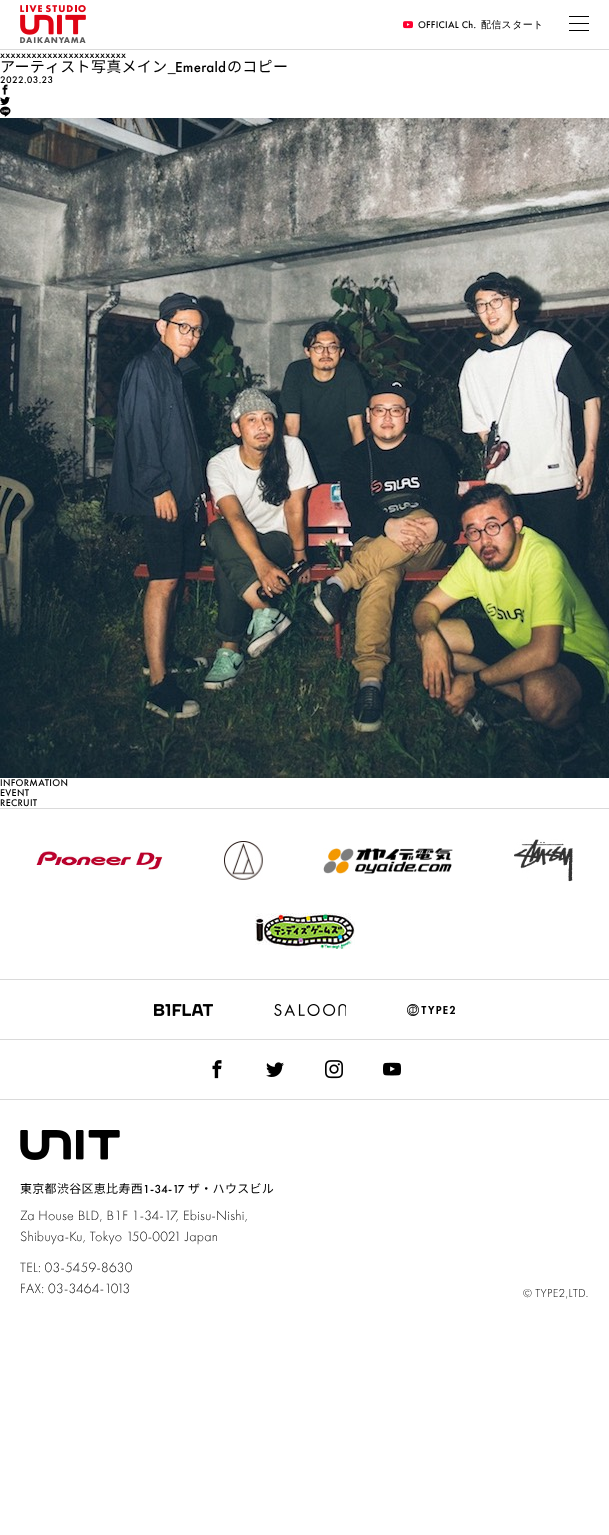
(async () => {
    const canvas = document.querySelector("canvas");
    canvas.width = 609;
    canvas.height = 1535;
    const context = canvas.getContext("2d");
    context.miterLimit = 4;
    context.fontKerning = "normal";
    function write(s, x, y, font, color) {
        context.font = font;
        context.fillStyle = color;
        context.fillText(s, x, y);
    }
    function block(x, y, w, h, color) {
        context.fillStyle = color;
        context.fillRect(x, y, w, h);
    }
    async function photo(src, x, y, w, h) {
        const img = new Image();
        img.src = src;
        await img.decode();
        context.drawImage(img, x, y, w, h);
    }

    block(0, 0, 609, 1535, "rgb(255, 255, 255)");
    block(0, 49, 609, 1, "rgb(218, 218, 218)");
    await photo("media/1.png", 20, 5, 66, 38);
    await photo("media/2.png", 403, 21, 10, 8);
    context.letterSpacing = "0.3px";
    write("OFFICIAL Ch.", 418, 28, "500 10px Futura PT", "rgb(0, 0, 0)");
    write("配信スタート", 481, 28, "500 10px WenQuanYi Zen Hei", "rgb(0, 0, 0)");
    block(569, 16, 20, 1, "rgb(0, 0, 0)");
    block(569, 23, 20, 1, "rgb(0, 0, 0)");
    block(569, 30, 20, 1, "rgb(0, 0, 0)");
    write("xxxxxxxxxxxxxxxxxxxxxxxx", 0, 58, "500 10px Futura PT", "rgb(0, 0, 0)");
    write("アーティスト写真メイン_", 0, 72, "15px Noto Sans JP", "rgb(0, 0, 0)");
    write("Emerald", 175, 72, "500 15px Futura PT", "rgb(0, 0, 0)");
    write("のコピー", 227, 72, "15px Noto Sans JP", "rgb(0, 0, 0)");
    write("2022.03.23", 0, 83, "500 10px Futura PT", "rgb(0, 0, 0)");
    await photo("media/3.png", 2, 84, 6, 11);
    await photo("media/4.png", 0, 96, 10, 9);
    await photo("media/5.png", 0, 106, 11, 11);
    await photo("media/6.png", 0, 118, 609, 660);
    write("INFORMATION", 0, 786, "500 10px Futura PT", "rgb(0, 0, 0)");
    write("EVENT", 0, 796, "500 10px Futura PT", "rgb(0, 0, 0)");
    write("RECRUIT", 0, 806, "500 10px Futura PT", "rgb(0, 0, 0)");
    block(0, 808, 609, 1, "rgb(218, 218, 218)");
    block(0, 979, 609, 1, "rgb(218, 218, 218)");
    await photo("media/7.png", 36, 851, 127, 19);
    await photo("media/8.png", 224, 841, 39, 39);
    await photo("media/9.png", 323, 848, 130, 26);
    await photo("media/10.png", 514, 839, 59, 43);
    await photo("media/11.png", 255, 913, 100, 36);
    block(0, 1039, 609, 1, "rgb(218, 218, 218)");
    await photo("media/12.png", 154, 1004, 59, 12);
    await photo("media/13.png", 274, 1004, 72, 12);
    await photo("media/14.png", 407, 1004, 48, 12);
    block(0, 1099, 609, 1, "rgb(218, 218, 218)");
    await photo("media/15.png", 212, 1060, 10, 19);
    await photo("media/16.png", 266, 1062, 18, 15);
    await photo("media/17.png", 325, 1060, 18, 19);
    await photo("media/18.png", 383, 1062, 18, 14);
    await photo("media/19.png", 20, 1130, 100, 30);
    write("東京都渋谷区恵比寿西", 20, 1193, "12px Noto Sans JP", "rgb(0, 0, 0)");
    write("1-34-17", 143, 1193, "500 12px Futura PT", "rgb(0, 0, 0)");
    write("ザ・ハウスビル", 188, 1193, "12px Noto Sans JP", "rgb(0, 0, 0)");
    write("Za House BLD, B1F 1-34-17, Ebisu-Nishi,", 20, 1220, "300 14px Futura PT", "rgb(0, 0, 0)");
    write("Shibuya-Ku, Tokyo 150-0021 Japan", 20, 1241, "300 14px Futura PT", "rgb(0, 0, 0)");
    write("TEL: 03-5459-8630", 20, 1272, "300 14px Futura PT", "rgb(0, 0, 0)");
    write("FAX: 03-3464-1013", 20, 1293, "300 14px Futura PT", "rgb(0, 0, 0)");
    write("©︎ TYPE2,LTD.", 523, 1297, "300 12px Futura PT", "rgb(0, 0, 0)");
})();
